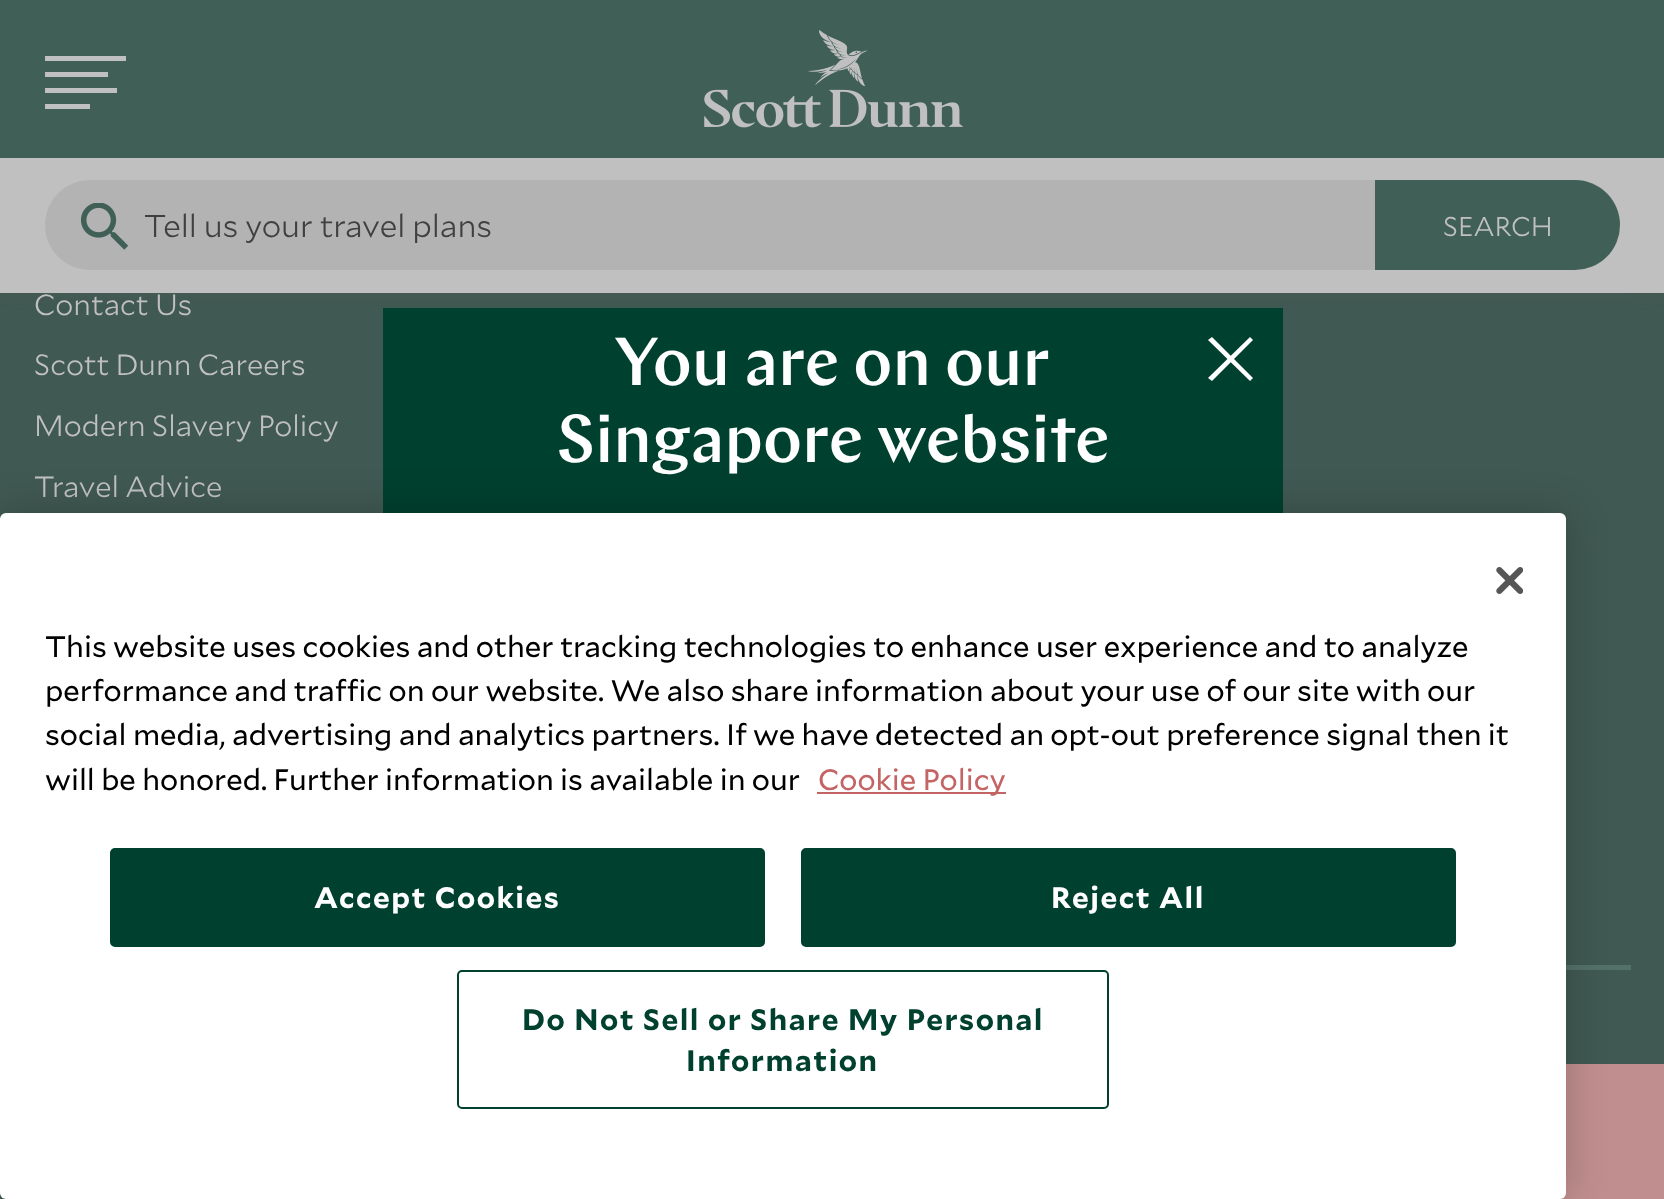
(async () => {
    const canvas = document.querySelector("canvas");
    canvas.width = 1664;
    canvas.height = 1199;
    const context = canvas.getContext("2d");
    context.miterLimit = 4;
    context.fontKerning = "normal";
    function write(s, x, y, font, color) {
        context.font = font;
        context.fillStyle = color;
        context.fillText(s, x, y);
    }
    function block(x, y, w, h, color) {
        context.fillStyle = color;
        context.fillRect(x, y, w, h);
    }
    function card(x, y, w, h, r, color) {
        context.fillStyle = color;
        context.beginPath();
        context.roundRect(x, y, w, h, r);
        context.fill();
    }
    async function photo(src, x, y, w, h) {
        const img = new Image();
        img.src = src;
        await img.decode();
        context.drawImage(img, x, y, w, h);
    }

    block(0, 0, 1664, 1199, "rgb(64, 89, 82)");
    context.fillStyle = "rgb(94, 94, 94)";
    context.filter = "blur(12.5px)";
    context.beginPath();
    context.rect(11, 169, 1643, 112);
    context.fill();
    context.filter = "none";
    block(0, 0, 1664, 158, "rgb(64, 96, 87)");
    await photo("media/1.png", 704, 30, 259, 98);
    block(45, 56, 81, 5, "rgb(192, 192, 192)");
    block(45, 72, 63, 5, "rgb(192, 192, 192)");
    block(45, 88, 72, 5, "rgb(192, 192, 192)");
    block(45, 104, 45, 5, "rgb(192, 192, 192)");
    block(0, 158, 1664, 135, "rgb(192, 192, 192)");
    card(45, 180, 1575, 90, 45, "rgb(179, 179, 179)");
    await photo("media/2.png", 80, 203, 49, 47);
    write("Tell us your travel plans", 144, 237, "300 31.5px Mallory", "rgb(64, 64, 64)");
    context.fillStyle = "rgb(64, 96, 87)";
    context.beginPath();
    context.roundRect(1375, 180, 245, 90, [0, 45, 45, 0]);
    context.fill();
    write("SEARCH", 1443, 236, "300 27px Mallory", "rgb(192, 192, 192)");
    block(1560, 1064, 104, 135, "rgb(192, 142, 142)");
    write("Contact Us", 34, 315, "300 29.25px Mallory", "rgb(192, 192, 192)");
    write("Scott Dunn Careers", 34, 375, "300 29.25px Mallory", "rgb(192, 192, 192)");
    write("Modern Slavery Policy", 34, 436, "300 29.25px Mallory", "rgb(192, 192, 192)");
    write("Travel Advice", 34, 497, "300 29.25px Mallory", "rgb(192, 192, 192)");
    block(1566, 965, 65, 5, "rgb(83, 113, 104)");
    block(383, 308, 900, 205, "rgb(0, 64, 46)");
    write("You are on our", 615, 385, "500 67.5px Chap", "rgb(255, 255, 255)");
    write("Singapore website", 556, 462, "500 67.5px Chap", "rgb(255, 255, 255)");
    context.beginPath();
    context.moveTo(1250, 337);
    context.lineTo(1253, 340);
    context.lineTo(1212, 381);
    context.lineTo(1208, 378);
    context.closePath();
    context.fill();
    context.beginPath();
    context.moveTo(1208, 340);
    context.lineTo(1212, 337);
    context.lineTo(1253, 378);
    context.lineTo(1250, 381);
    context.closePath();
    context.fill();
    context.fillStyle = "rgba(0, 0, 0, 0.2)";
    context.filter = "blur(20px)";
    context.beginPath();
    context.roundRect(0, 513, 1566, 686, 6);
    context.fill();
    context.filter = "none";
    card(0, 513, 1566, 686, 6, "rgb(255, 255, 255)");
    await photo("media/3.png", 1496, 567, 27, 27);
    write("This website uses cookies and other tracking technologies to enhance user experience and to analyze", 45, 657, "29.5px Mallory", "rgb(0, 0, 0)");
    write("performance and traffic on our website. We also share information about your use of our site with our", 45, 701, "29.5px Mallory", "rgb(0, 0, 0)");
    write("social media, advertising and analytics partners. If we have detected an opt-out preference signal then it", 45, 745, "29.5px Mallory", "rgb(0, 0, 0)");
    write("will be honored. Further information is available in our", 45, 790, "29.5px Mallory", "rgb(0, 0, 0)");
    block(817, 792, 189, 2, "rgb(196, 100, 100)");
    write("Cookie Policy", 818, 790, "29.5px Mallory", "rgb(196, 100, 100)");
    context.fillStyle = "rgb(0, 64, 46)";
    context.beginPath();
    context.roundRect(111, 849, 653, 97, 4);
    context.fill();
    context.strokeStyle = "rgb(0, 64, 46)";
    context.lineWidth = 2;
    context.stroke();
    context.letterSpacing = "1.5px";
    write("Accept Cookies", 314, 908, "bold 29.5px Mallory", "rgb(255, 255, 255)");
    context.fillStyle = "rgb(0, 64, 46)";
    context.beginPath();
    context.roundRect(802, 849, 653, 97, 4);
    context.fill();
    context.stroke();
    write("Reject All", 1051, 908, "bold 29.5px Mallory", "rgb(255, 255, 255)");
    context.beginPath();
    context.roundRect(458, 971, 650, 137, 4);
    context.stroke();
    write("Do Not Sell or Share My Personal", 522, 1030, "bold 29.5px Mallory", "rgb(0, 64, 46)");
    write("Information", 686, 1071, "bold 29.5px Mallory", "rgb(0, 64, 46)");
})();
